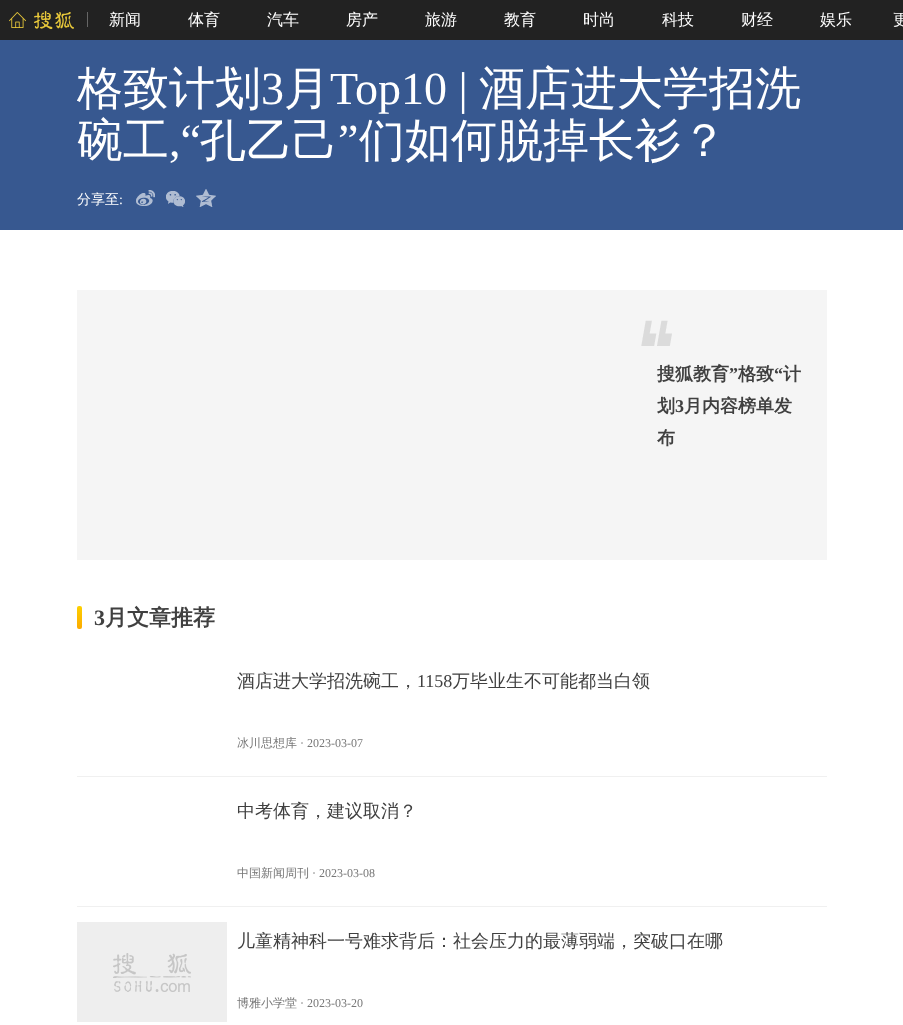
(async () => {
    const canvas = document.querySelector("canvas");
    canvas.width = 903;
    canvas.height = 1025;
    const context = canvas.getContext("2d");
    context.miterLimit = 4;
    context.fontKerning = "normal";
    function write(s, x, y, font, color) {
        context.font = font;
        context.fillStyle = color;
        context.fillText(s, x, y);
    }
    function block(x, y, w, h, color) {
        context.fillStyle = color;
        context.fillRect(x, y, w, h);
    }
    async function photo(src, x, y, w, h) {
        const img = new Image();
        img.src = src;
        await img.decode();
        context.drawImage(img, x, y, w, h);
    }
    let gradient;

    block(0, 0, 903, 1025, "rgb(255, 255, 255)");
    block(0, 0, 903, 40, "rgb(34, 34, 34)");
    await photo("media/1.png", 9, 12, 17, 16);
    await photo("media/2.png", 34, 11, 40, 19);
    block(87, 12, 1, 15, "rgb(102, 102, 102)");
    write("新闻", 109, 25, "500 16px WenQuanYi Zen Hei", "rgb(255, 255, 255)");
    write("体育", 188, 25, "500 16px WenQuanYi Zen Hei", "rgb(255, 255, 255)");
    write("汽车", 267, 25, "500 16px WenQuanYi Zen Hei", "rgb(255, 255, 255)");
    write("房产", 346, 25, "500 16px WenQuanYi Zen Hei", "rgb(255, 255, 255)");
    write("旅游", 425, 25, "500 16px WenQuanYi Zen Hei", "rgb(255, 255, 255)");
    write("教育", 504, 25, "500 16px WenQuanYi Zen Hei", "rgb(255, 255, 255)");
    write("时尚", 583, 25, "500 16px WenQuanYi Zen Hei", "rgb(255, 255, 255)");
    write("科技", 662, 25, "500 16px WenQuanYi Zen Hei", "rgb(255, 255, 255)");
    write("财经", 741, 25, "500 16px WenQuanYi Zen Hei", "rgb(255, 255, 255)");
    write("娱乐", 820, 25, "500 16px WenQuanYi Zen Hei", "rgb(255, 255, 255)");
    write("更", 893, 25, "500 16px WenQuanYi Zen Hei", "rgb(255, 255, 255)");
    block(0, 40, 903, 190, "rgb(55, 88, 144)");
    write("格致计划", 77, 104, "500 46px WenQuanYi Zen Hei", "rgb(255, 255, 255)");
    write("3", 261, 104, "46px Liberation Serif", "rgb(255, 255, 255)");
    write("月", 284, 104, "500 46px WenQuanYi Zen Hei", "rgb(255, 255, 255)");
    write("Top10 |", 330, 104, "46px Liberation Serif", "rgb(255, 255, 255)");
    write("酒店进大学招洗", 479, 104, "500 46px WenQuanYi Zen Hei", "rgb(255, 255, 255)");
    write("碗工", 77, 156, "500 46px WenQuanYi Zen Hei", "rgb(255, 255, 255)");
    write(",“", 169, 156, "46px Liberation Serif", "rgb(255, 255, 255)");
    write("孔乙己", 200, 156, "500 46px WenQuanYi Zen Hei", "rgb(255, 255, 255)");
    write("”", 338, 156, "46px Liberation Serif", "rgb(255, 255, 255)");
    write("们如何脱掉长衫？", 359, 156, "500 46px WenQuanYi Zen Hei", "rgb(255, 255, 255)");
    write("分享至", 77, 204, "500 14px WenQuanYi Zen Hei", "rgb(255, 255, 255)");
    write(":", 119, 204, "14px Liberation Serif", "rgb(255, 255, 255)");
    await photo("media/3.png", 136, 190, 19, 16);
    await photo("media/4.png", 166, 191, 19, 16);
    await photo("media/5.png", 196, 189, 20, 18);
    block(77, 290, 750, 270, "rgb(245, 245, 245)");
    await photo("media/6.png", 641, 320, 31, 26);
    write("搜狐教育", 657, 380, "bold 18px WenQuanYi Zen Hei", "rgb(64, 64, 64)");
    write("”", 729, 380, "bold 18px Liberation Serif", "rgb(64, 64, 64)");
    write("格致", 738, 380, "bold 18px WenQuanYi Zen Hei", "rgb(64, 64, 64)");
    write("“", 774, 380, "bold 18px Liberation Serif", "rgb(64, 64, 64)");
    write("计", 783, 380, "bold 18px WenQuanYi Zen Hei", "rgb(64, 64, 64)");
    write("划", 657, 412, "bold 18px WenQuanYi Zen Hei", "rgb(64, 64, 64)");
    write("3", 675, 412, "bold 18px Liberation Serif", "rgb(64, 64, 64)");
    write("月内容榜单发", 684, 412, "bold 18px WenQuanYi Zen Hei", "rgb(64, 64, 64)");
    write("布", 657, 444, "bold 18px WenQuanYi Zen Hei", "rgb(64, 64, 64)");
    gradient = context.createLinearGradient(77, 606, 77, 629);
    gradient.addColorStop(0, "rgb(253, 208, 0)");
    gradient.addColorStop(1, "rgb(252, 170, 0)");
    context.fillStyle = gradient;
    context.beginPath();
    context.roundRect(77, 606, 5, 23, 2);
    context.fill();
    write("3", 94, 625, "bold 22px Liberation Serif", "rgb(64, 64, 64)");
    write("月文章推荐", 105, 625, "bold 22px WenQuanYi Zen Hei", "rgb(64, 64, 64)");
    block(77, 776, 750, 1, "rgb(240, 240, 240)");
    write("酒店进大学招洗碗工，", 237, 687, "500 18px WenQuanYi Zen Hei", "rgb(64, 64, 64)");
    write("1158", 417, 687, "18px Liberation Serif", "rgb(64, 64, 64)");
    write("万毕业生不可能都当白领", 452, 687, "500 18px WenQuanYi Zen Hei", "rgb(64, 64, 64)");
    write("冰川思想库", 237, 747, "500 12px WenQuanYi Zen Hei", "rgb(119, 119, 119)");
    write("· 2023-03-07", 300, 747, "12px Liberation Serif", "rgb(119, 119, 119)");
    block(77, 906, 750, 1, "rgb(240, 240, 240)");
    write("中考体育，建议取消？", 237, 817, "500 18px WenQuanYi Zen Hei", "rgb(64, 64, 64)");
    write("中国新闻周刊", 237, 877, "500 12px WenQuanYi Zen Hei", "rgb(119, 119, 119)");
    write("· 2023-03-08", 312, 877, "12px Liberation Serif", "rgb(119, 119, 119)");
    await photo("media/7.png", 77, 922, 150, 100);
    write("儿童精神科一号难求背后：社会压力的最薄弱端，突破口在哪", 237, 947, "500 18px WenQuanYi Zen Hei", "rgb(64, 64, 64)");
    write("博雅小学堂", 237, 1007, "500 12px WenQuanYi Zen Hei", "rgb(119, 119, 119)");
    write("· 2023-03-20", 300, 1007, "12px Liberation Serif", "rgb(119, 119, 119)");
})();
